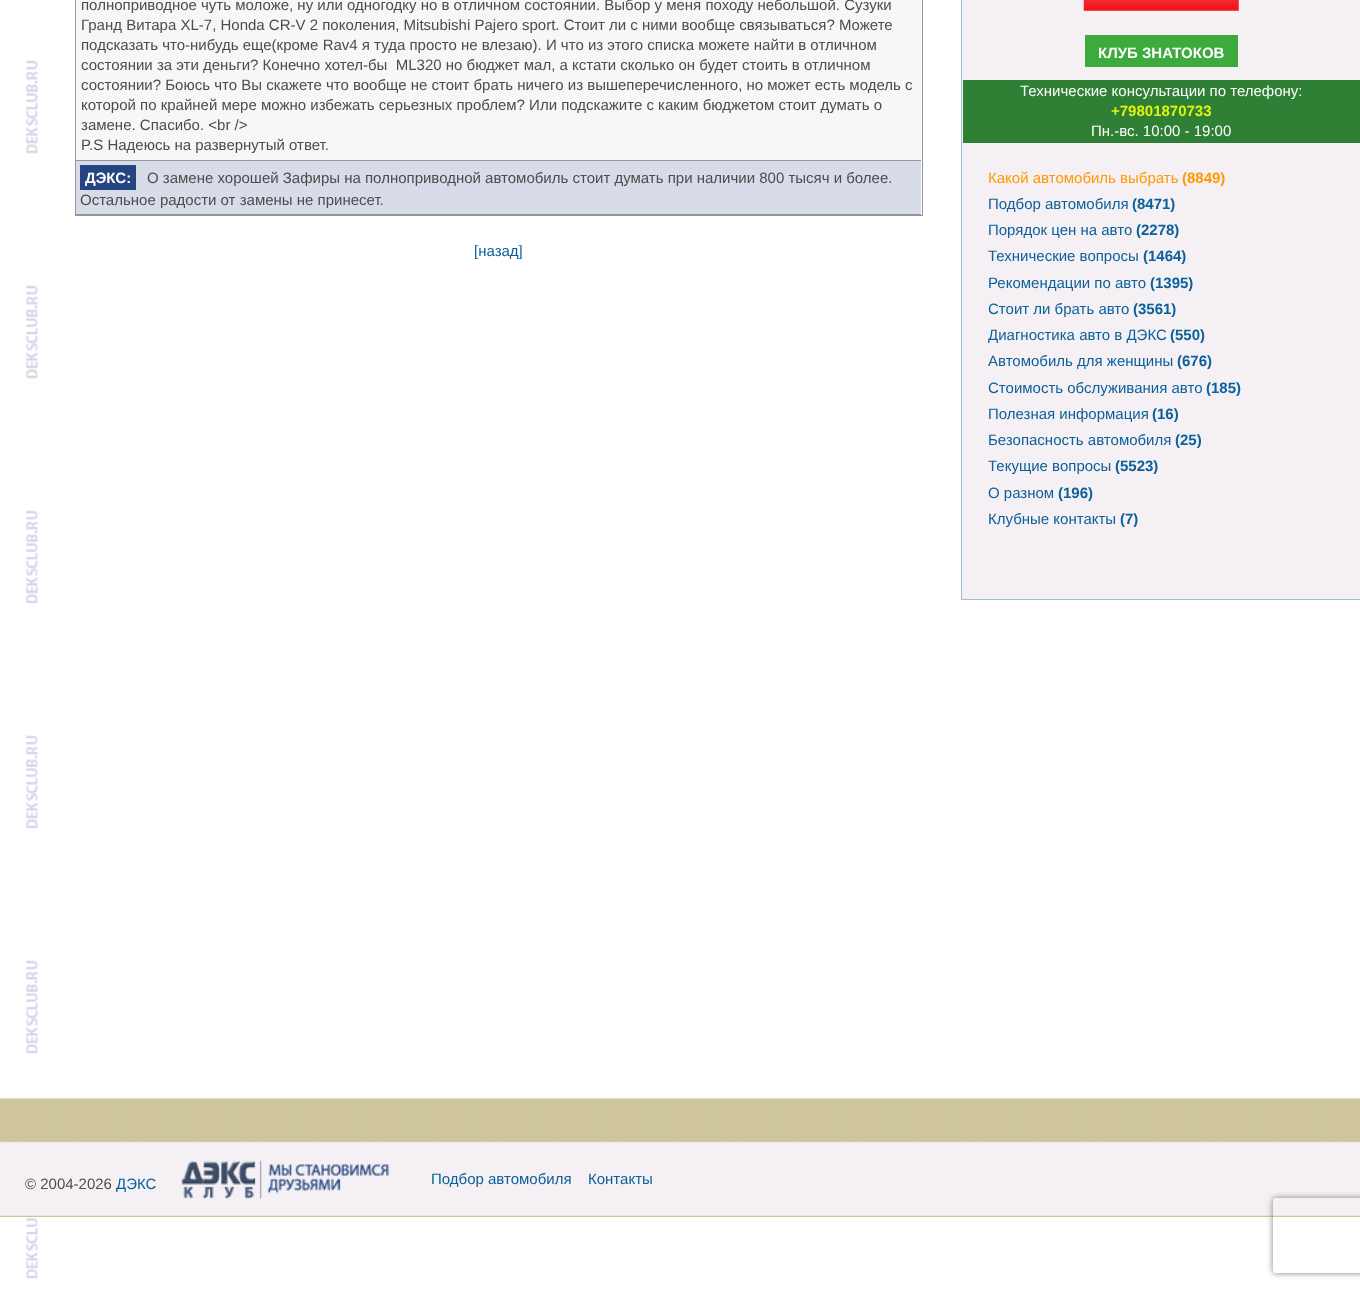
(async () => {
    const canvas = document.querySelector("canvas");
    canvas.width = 1360;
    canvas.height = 1289;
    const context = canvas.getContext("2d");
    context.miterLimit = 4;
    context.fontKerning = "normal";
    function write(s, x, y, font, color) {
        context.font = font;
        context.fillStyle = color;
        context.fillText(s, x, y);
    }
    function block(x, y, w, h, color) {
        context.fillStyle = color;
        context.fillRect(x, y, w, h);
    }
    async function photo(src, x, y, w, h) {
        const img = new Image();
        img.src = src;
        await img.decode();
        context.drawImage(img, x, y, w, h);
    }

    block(0, 0, 1360, 1289, "rgb(255, 255, 255)");
    await photo("media/1.png", 26, 60, 12, 1219);
    context.strokeStyle = "rgb(147, 149, 159)";
    context.strokeRect(75.5, -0.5, 847, 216);
    block(76, 0, 845, 160, "rgb(247, 247, 247)");
    block(76, 160, 845, 1, "rgb(147, 149, 159)");
    write("полноприводное чуть моложе, ну или одногодку но в отличном состоянии. Выбор у меня походу небольшой. Сузуки", 81, 10, "15px Liberation Sans", "rgb(76, 76, 76)");
    write("Гранд Витара XL-7, Honda CR-V 2 поколения, Mitsubishi Pajero sport. Стоит ли с ними вообще связываться? Можете", 81, 30, "15px Liberation Sans", "rgb(76, 76, 76)");
    write("подсказать что-нибудь еще(кроме Rav4 я туда просто не влезаю). И что из этого списка можете найти в отличном", 81, 50, "15px Liberation Sans", "rgb(76, 76, 76)");
    write("состоянии за эти деньги? Конечно хотел-бы  ML320 но бюджет мал, а кстати сколько он будет стоить в отличном", 81, 70, "15px Liberation Sans", "rgb(76, 76, 76)");
    write("состоянии? Боюсь что Вы скажете что вообще не стоит брать ничего из вышеперечисленного, но может есть модель с", 81, 90, "15px Liberation Sans", "rgb(76, 76, 76)");
    write("которой по крайней мере можно избежать серьезных проблем? Или подскажите с каким бюджетом стоит думать о", 81, 110, "15px Liberation Sans", "rgb(76, 76, 76)");
    write("замене. Спасибо. <br />", 81, 130, "15px Liberation Sans", "rgb(76, 76, 76)");
    write("P.S Надеюсь на развернутый ответ.", 81, 150, "15px Liberation Sans", "rgb(76, 76, 76)");
    block(76, 161, 845, 53, "rgb(216, 220, 233)");
    block(76, 214, 845, 1, "rgb(147, 149, 159)");
    block(80, 165, 56, 25, "rgb(36, 69, 127)");
    write("ДЭКС:", 85, 183, "bold 15px Liberation Sans", "rgb(255, 255, 255)");
    write("О замене хорошей Зафиры на полноприводной автомобиль стоит думать при наличии 800 тысяч и более.", 147, 183, "15px Liberation Sans", "rgb(76, 76, 76)");
    write("Остальное радости от замены не принесет.", 80, 205, "15px Liberation Sans", "rgb(76, 76, 76)");
    write("[назад]", 474, 256, "15px Liberation Sans", "rgb(11, 95, 154)");
    block(962, 0, 398, 599, "rgb(244, 240, 244)");
    block(961, 599, 399, 1, "rgb(157, 192, 214)");
    block(961, 0, 1, 600, "rgb(157, 192, 214)");
    await photo("media/2.png", 1083, 0, 156, 11);
    block(1085, 35, 153, 32, "rgb(61, 170, 61)");
    write("КЛУБ ЗНАТОКОВ", 1098, 58, "bold 15px Liberation Sans", "rgb(255, 255, 255)");
    block(963, 80, 397, 63, "rgb(47, 127, 52)");
    write("Технические консультации по телефону:", 1020, 96, "15px Liberation Sans", "rgb(255, 255, 255)");
    write("+79801870733", 1111, 116, "bold 15px Liberation Sans", "rgb(223, 243, 18)");
    write("Пн.-вс. 10:00 - 19:00", 1091, 136, "15px Liberation Sans", "rgb(255, 255, 255)");
    write("Какой автомобиль выбрать", 988, 183, "15px Liberation Sans", "rgb(255, 153, 0)");
    write("(8849)", 1182, 183, "bold 15px Liberation Sans", "rgb(255, 153, 0)");
    write("Подбор автомобиля", 988, 209, "15px Liberation Sans", "rgb(11, 95, 154)");
    write("(8471)", 1132, 209, "bold 15px Liberation Sans", "rgb(11, 95, 154)");
    write("Порядок цен на авто", 988, 235, "15px Liberation Sans", "rgb(11, 95, 154)");
    write("(2278)", 1136, 235, "bold 15px Liberation Sans", "rgb(11, 95, 154)");
    write("Технические вопросы", 988, 261, "15px Liberation Sans", "rgb(11, 95, 154)");
    write("(1464)", 1143, 261, "bold 15px Liberation Sans", "rgb(11, 95, 154)");
    write("Рекомендации по авто", 988, 288, "15px Liberation Sans", "rgb(11, 95, 154)");
    write("(1395)", 1150, 288, "bold 15px Liberation Sans", "rgb(11, 95, 154)");
    write("Стоит ли брать авто", 988, 314, "15px Liberation Sans", "rgb(11, 95, 154)");
    write("(3561)", 1133, 314, "bold 15px Liberation Sans", "rgb(11, 95, 154)");
    write("Диагностика авто в ДЭКС", 988, 340, "15px Liberation Sans", "rgb(11, 95, 154)");
    write("(550)", 1170, 340, "bold 15px Liberation Sans", "rgb(11, 95, 154)");
    write("Автомобиль для женщины", 988, 366, "15px Liberation Sans", "rgb(11, 95, 154)");
    write("(676)", 1177, 366, "bold 15px Liberation Sans", "rgb(11, 95, 154)");
    write("Стоимость обслуживания авто", 988, 393, "15px Liberation Sans", "rgb(11, 95, 154)");
    write("(185)", 1206, 393, "bold 15px Liberation Sans", "rgb(11, 95, 154)");
    write("Полезная информация", 988, 419, "15px Liberation Sans", "rgb(11, 95, 154)");
    write("(16)", 1152, 419, "bold 15px Liberation Sans", "rgb(11, 95, 154)");
    write("Безопасность автомобиля", 988, 445, "15px Liberation Sans", "rgb(11, 95, 154)");
    write("(25)", 1175, 445, "bold 15px Liberation Sans", "rgb(11, 95, 154)");
    write("Текущие вопросы", 988, 471, "15px Liberation Sans", "rgb(11, 95, 154)");
    write("(5523)", 1115, 471, "bold 15px Liberation Sans", "rgb(11, 95, 154)");
    write("О разном", 988, 498, "15px Liberation Sans", "rgb(11, 95, 154)");
    write("(196)", 1058, 498, "bold 15px Liberation Sans", "rgb(11, 95, 154)");
    write("Клубные контакты", 988, 524, "15px Liberation Sans", "rgb(11, 95, 154)");
    write("(7)", 1120, 524, "bold 15px Liberation Sans", "rgb(11, 95, 154)");
    await photo("media/3.png", 0, 1098, 1360, 119);
    write("© 2004-2026", 25, 1189, "15px Liberation Sans", "rgb(76, 76, 76)");
    write("ДЭКС", 116, 1189, "15px Liberation Sans", "rgb(11, 95, 154)");
    await photo("media/4.png", 181, 1160, 208, 39);
    write("Подбор автомобиля", 431, 1184, "15px Liberation Sans", "rgb(11, 95, 154)");
    write("Контакты", 588, 1184, "15px Liberation Sans", "rgb(11, 95, 154)");
    context.save();
    context.beginPath();
    context.moveTo(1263, 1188);
    context.lineTo(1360, 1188);
    context.lineTo(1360, 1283);
    context.lineTo(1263, 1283);
    context.closePath();
    context.moveTo(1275.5, 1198);
    context.lineTo(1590.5, 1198);
    context.bezierCurveTo(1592, 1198, 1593, 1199, 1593, 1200.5);
    context.lineTo(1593, 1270.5);
    context.bezierCurveTo(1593, 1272, 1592, 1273, 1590.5, 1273);
    context.lineTo(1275.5, 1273);
    context.bezierCurveTo(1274, 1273, 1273, 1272, 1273, 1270.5);
    context.lineTo(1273, 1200.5);
    context.bezierCurveTo(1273, 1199, 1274, 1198, 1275.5, 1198);
    context.closePath();
    context.clip("evenodd");
    context.fillStyle = "rgb(128, 128, 128)";
    context.filter = "blur(3px)";
    context.beginPath();
    context.roundRect(1273, 1198, 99, 75, 2.5);
    context.fill();
    context.filter = "none";
    context.restore();
})();
